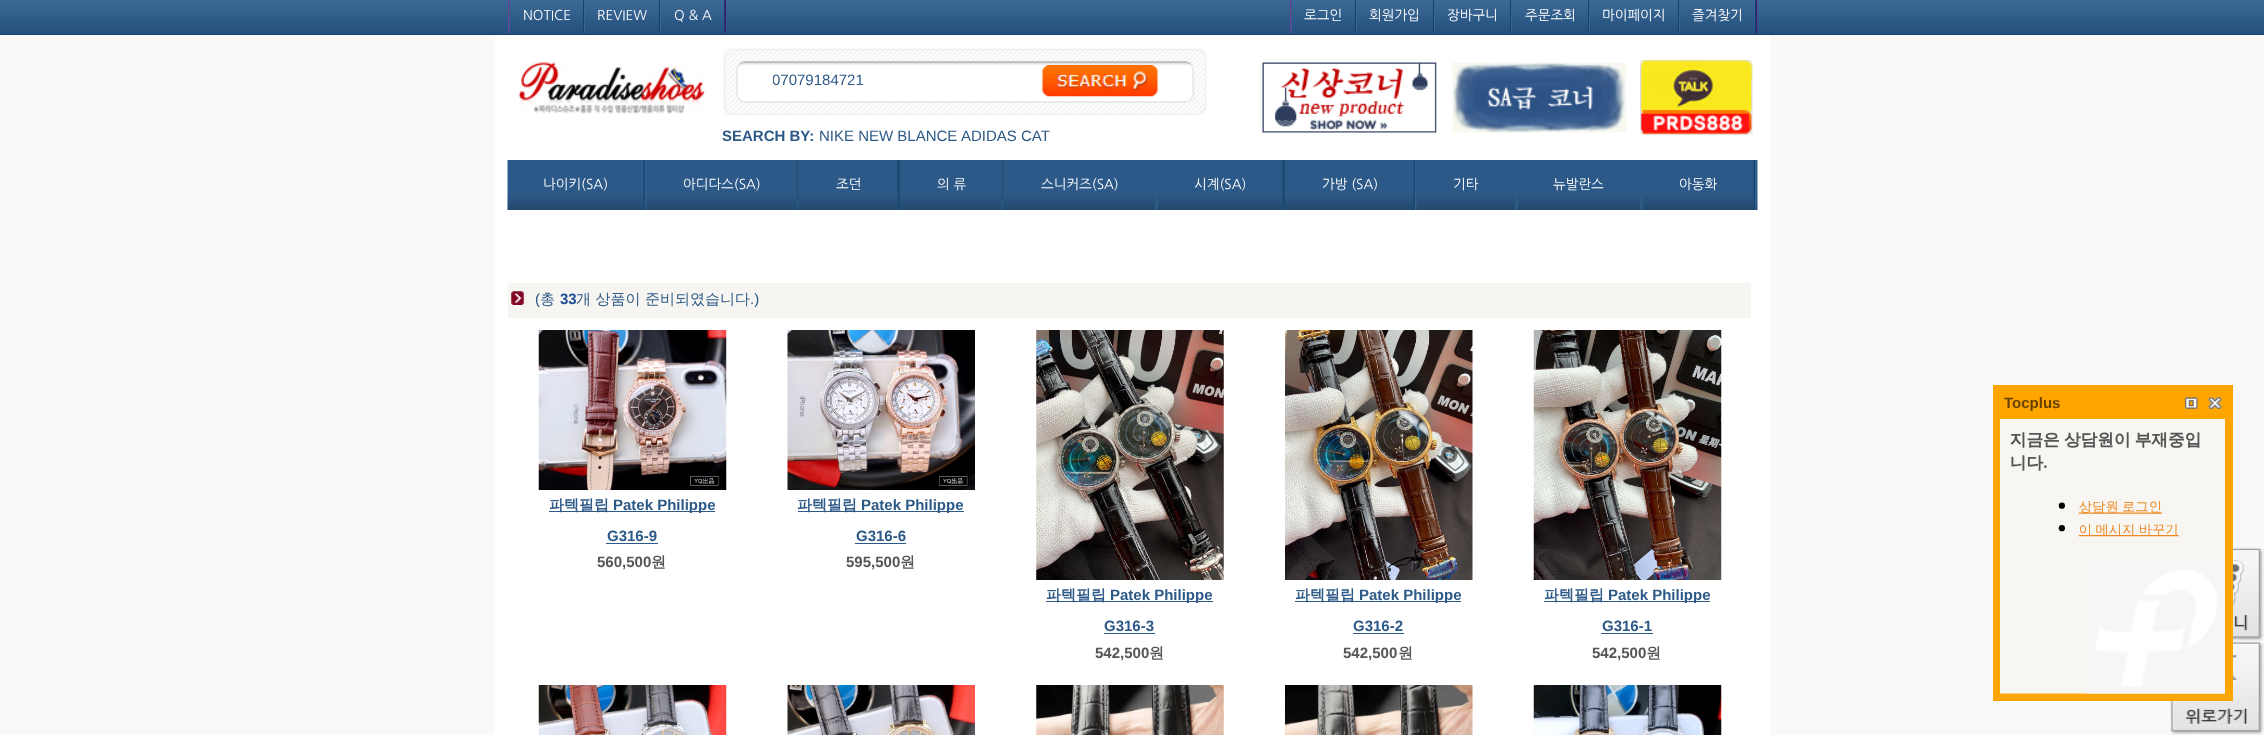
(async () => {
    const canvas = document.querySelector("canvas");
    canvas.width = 2264;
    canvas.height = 735;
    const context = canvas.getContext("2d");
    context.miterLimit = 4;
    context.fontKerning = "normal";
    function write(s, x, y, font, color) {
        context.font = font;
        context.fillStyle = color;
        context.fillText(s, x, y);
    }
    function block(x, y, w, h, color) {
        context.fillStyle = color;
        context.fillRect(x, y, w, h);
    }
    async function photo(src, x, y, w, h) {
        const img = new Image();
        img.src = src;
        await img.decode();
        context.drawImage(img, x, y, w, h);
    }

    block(0, 0, 2264, 735, "rgb(249, 249, 249)");
    block(495, 35, 1275, 700, "rgb(255, 255, 255)");
    await photo("media/1.png", 0, 0, 2264, 35);
    block(1756, 0, 1, 33, "rgb(69, 21, 110)");
    block(508, 0, 1, 33, "rgb(105, 59, 145)");
    block(725, 0, 1, 33, "rgb(69, 21, 110)");
    block(583, 0, 1, 33, "rgb(21, 65, 111)");
    block(509, 0, 1, 33, "rgb(59, 102, 146)");
    write("NOTICE", 523, 20, "13.5px NanumGothic", "rgb(255, 255, 255)");
    block(659, 0, 1, 33, "rgb(21, 65, 111)");
    block(584, 0, 1, 33, "rgb(59, 102, 146)");
    write("REVIEW", 597, 20, "13.5px NanumGothic", "rgb(255, 255, 255)");
    block(724, 0, 1, 33, "rgb(21, 65, 111)");
    block(660, 0, 1, 33, "rgb(59, 102, 146)");
    write("Q & A", 674, 20, "13.5px NanumGothic", "rgb(255, 255, 255)");
    block(1290, 0, 1, 33, "rgb(105, 59, 145)");
    block(1355, 0, 1, 33, "rgb(21, 65, 111)");
    block(1291, 0, 1, 33, "rgb(59, 102, 146)");
    write("로그인", 1304, 20, "13.5px NanumGothic", "rgb(255, 255, 255)");
    block(1433, 0, 1, 33, "rgb(21, 65, 111)");
    block(1356, 0, 1, 33, "rgb(59, 102, 146)");
    write("회원가입", 1369, 20, "13.5px NanumGothic", "rgb(255, 255, 255)");
    block(1510, 0, 1, 33, "rgb(21, 65, 111)");
    block(1434, 0, 1, 33, "rgb(59, 102, 146)");
    write("장바구니", 1447, 20, "13.5px NanumGothic", "rgb(255, 255, 255)");
    block(1588, 0, 1, 33, "rgb(21, 65, 111)");
    block(1511, 0, 1, 33, "rgb(59, 102, 146)");
    write("주문조회", 1525, 20, "13.5px NanumGothic", "rgb(255, 255, 255)");
    block(1678, 0, 1, 33, "rgb(21, 65, 111)");
    block(1589, 0, 1, 33, "rgb(59, 102, 146)");
    write("마이페이지", 1602, 20, "13.5px NanumGothic", "rgb(255, 255, 255)");
    block(1755, 0, 1, 33, "rgb(21, 65, 111)");
    block(1679, 0, 1, 33, "rgb(59, 102, 146)");
    write("즐겨찾기", 1692, 20, "13.5px NanumGothic", "rgb(255, 255, 255)");
    await photo("media/2.png", 518, 62, 187, 52);
    await photo("media/3.png", 723, 48, 484, 67);
    context.save();
    context.beginPath();
    context.rect(773, 69, 237, 24);
    context.clip();
    write("07079184721", 772, 85, "15px Liberation Sans", "rgb(44, 89, 135)");
    context.restore();
    await photo("media/4.png", 1042, 65, 116, 32);
    write("SEARCH BY:", 722, 141, "bold 15px Liberation Sans", "rgb(44, 89, 135)");
    write("NIKE NEW BLANCE", 819, 141, "15px Liberation Sans", "rgb(44, 89, 135)");
    write("ADIDAS CAT", 961, 141, "15px Liberation Sans", "rgb(44, 89, 135)");
    await photo("media/5.png", 1262, 62, 175, 71);
    await photo("media/6.png", 1452, 62, 175, 71);
    await photo("media/7.png", 1640, 60, 113, 75);
    await photo("media/8.png", 507, 160, 1251, 50);
    write("나이키(SA)", 543, 189, "13.5px NanumGothic", "rgb(255, 255, 255)");
    await photo("media/9.png", 643, 160, 4, 50);
    write("아디다스(SA)", 683, 189, "13.5px NanumGothic", "rgb(255, 255, 255)");
    block(796, 160, 3, 50, "rgb(40, 83, 127)");
    write("조던", 836, 189, "13.5px NanumGothic", "rgb(255, 255, 255)");
    block(897, 160, 3, 50, "rgb(30, 74, 118)");
    write("의 류", 937, 189, "13.5px NanumGothic", "rgb(255, 255, 255)");
    block(1001, 160, 3, 50, "rgb(40, 83, 127)");
    write("스니커즈(SA)", 1041, 189, "13.5px NanumGothic", "rgb(255, 255, 255)");
    block(1155, 194, 3, 16, "rgb(47, 90, 134)");
    write("시계(SA)", 1194, 189, "13.5px NanumGothic", "rgb(255, 255, 255)");
    block(1282, 160, 3, 50, "rgb(30, 74, 118)");
    write("가방 (SA)", 1322, 189, "13.5px NanumGothic", "rgb(255, 255, 255)");
    await photo("media/10.png", 1413, 160, 4, 50);
    write("기타", 1453, 189, "13.5px NanumGothic", "rgb(255, 255, 255)");
    block(1515, 194, 3, 16, "rgb(47, 90, 134)");
    write("뉴발란스", 1553, 189, "13.5px NanumGothic", "rgb(255, 255, 255)");
    block(1640, 194, 3, 16, "rgb(47, 90, 134)");
    write("아동화", 1679, 189, "13.5px NanumGothic", "rgb(255, 255, 255)");
    await photo("media/10.png", 1753, 160, 4, 50);
    block(508, 283, 1243, 35, "rgb(247, 245, 241)");
    await photo("media/11.png", 511, 291, 17, 14);
    write("(", 535, 304, "15px Liberation Sans", "rgb(44, 89, 135)");
    write("총", 540, 304, "500 15px WenQuanYi Zen Hei", "rgb(44, 89, 135)");
    write("33", 560, 304, "bold 15px Liberation Sans", "rgb(27, 77, 143)");
    write("개 상품이 준비되였습니다", 576, 304, "500 15px WenQuanYi Zen Hei", "rgb(44, 89, 135)");
    write(".)", 750, 304, "15px Liberation Sans", "rgb(44, 89, 135)");
    await photo("media/12.png", 538, 330, 189, 160);
    block(549, 511, 166, 1, "rgb(44, 89, 135)");
    write("파텍필립", 549, 510, "bold 15px WenQuanYi Zen Hei", "rgb(44, 89, 135)");
    write("Patek Philippe", 613, 510, "bold 15px Liberation Sans", "rgb(44, 89, 135)");
    write("G316-9", 607, 541, "bold 15px Liberation Sans", "rgb(44, 89, 135)");
    block(606, 543, 52, 1, "rgb(44, 89, 135)");
    write("560,500", 597, 567, "bold 15px Liberation Sans", "rgb(85, 85, 85)");
    write("원", 651, 567, "bold 15px WenQuanYi Zen Hei", "rgb(85, 85, 85)");
    await photo("media/13.png", 787, 330, 188, 160);
    block(798, 511, 166, 1, "rgb(44, 89, 135)");
    write("파텍필립", 797, 510, "bold 15px WenQuanYi Zen Hei", "rgb(44, 89, 135)");
    write("Patek Philippe", 861, 510, "bold 15px Liberation Sans", "rgb(44, 89, 135)");
    write("G316-6", 856, 541, "bold 15px Liberation Sans", "rgb(44, 89, 135)");
    block(855, 543, 51, 1, "rgb(44, 89, 135)");
    write("595,500", 846, 567, "bold 15px Liberation Sans", "rgb(85, 85, 85)");
    write("원", 900, 567, "bold 15px WenQuanYi Zen Hei", "rgb(85, 85, 85)");
    await photo("media/14.png", 1036, 330, 188, 250);
    block(1046, 601, 167, 1, "rgb(44, 89, 135)");
    write("파텍필립", 1046, 600, "bold 15px WenQuanYi Zen Hei", "rgb(44, 89, 135)");
    write("Patek Philippe", 1110, 600, "bold 15px Liberation Sans", "rgb(44, 89, 135)");
    write("G316-3", 1104, 631, "bold 15px Liberation Sans", "rgb(44, 89, 135)");
    block(1104, 633, 51, 1, "rgb(44, 89, 135)");
    write("542,500", 1095, 658, "bold 15px Liberation Sans", "rgb(85, 85, 85)");
    write("원", 1149, 658, "bold 15px WenQuanYi Zen Hei", "rgb(85, 85, 85)");
    await photo("media/15.png", 1285, 330, 188, 250);
    block(1295, 601, 166, 1, "rgb(44, 89, 135)");
    write("파텍필립", 1295, 600, "bold 15px WenQuanYi Zen Hei", "rgb(44, 89, 135)");
    write("Patek Philippe", 1359, 600, "bold 15px Liberation Sans", "rgb(44, 89, 135)");
    write("G316-2", 1353, 631, "bold 15px Liberation Sans", "rgb(44, 89, 135)");
    block(1353, 633, 51, 1, "rgb(44, 89, 135)");
    write("542,500", 1343, 658, "bold 15px Liberation Sans", "rgb(85, 85, 85)");
    write("원", 1398, 658, "bold 15px WenQuanYi Zen Hei", "rgb(85, 85, 85)");
    await photo("media/16.png", 1533, 330, 189, 250);
    block(1544, 601, 166, 1, "rgb(44, 89, 135)");
    write("파텍필립", 1544, 600, "bold 15px WenQuanYi Zen Hei", "rgb(44, 89, 135)");
    write("Patek Philippe", 1608, 600, "bold 15px Liberation Sans", "rgb(44, 89, 135)");
    write("G316-1", 1602, 631, "bold 15px Liberation Sans", "rgb(44, 89, 135)");
    block(1601, 633, 52, 1, "rgb(44, 89, 135)");
    write("542,500", 1592, 658, "bold 15px Liberation Sans", "rgb(85, 85, 85)");
    write("원", 1646, 658, "bold 15px WenQuanYi Zen Hei", "rgb(85, 85, 85)");
    await photo("media/17.png", 538, 685, 189, 50);
    await photo("media/18.png", 787, 685, 188, 50);
    await photo("media/19.png", 1036, 685, 188, 50);
    await photo("media/20.png", 1285, 685, 188, 50);
    await photo("media/21.png", 1533, 685, 189, 50);
    await photo("media/26.png", 2170, 641, 94, 94);
    context.strokeStyle = "rgb(255, 165, 0)";
    context.lineWidth = 3;
    context.strokeRect(1994.5, 386.5, 237, 313);
    block(1996, 388, 234, 310, "rgb(255, 165, 0)");
    write("Tocplus", 2004, 408, "bold 15px Liberation Sans", "rgb(102, 66, 0)");
    await photo("media/22.png", 2184, 397, 14, 12);
    await photo("media/23.png", 2208, 397, 14, 12);
    await photo("media/24.png", 2000, 418, 225, 276);
    await photo("media/25.png", 2233, 547, 31, 94);
})();
